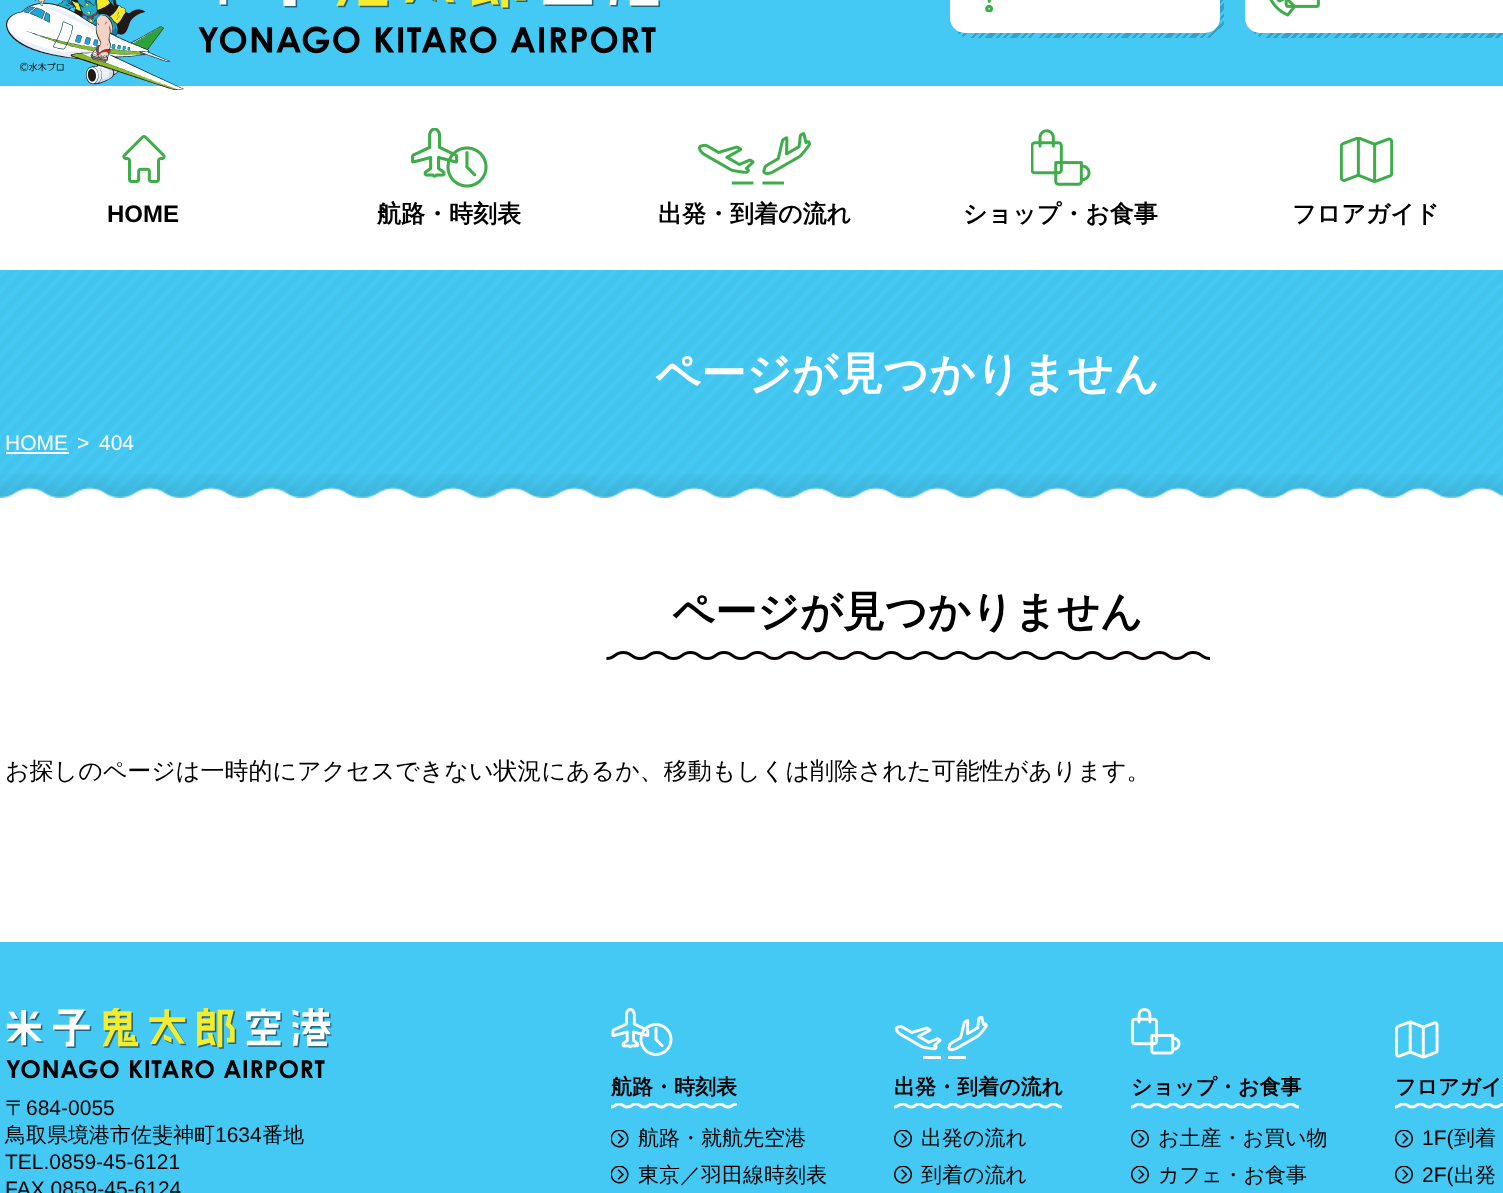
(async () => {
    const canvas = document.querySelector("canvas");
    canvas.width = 1503;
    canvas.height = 1193;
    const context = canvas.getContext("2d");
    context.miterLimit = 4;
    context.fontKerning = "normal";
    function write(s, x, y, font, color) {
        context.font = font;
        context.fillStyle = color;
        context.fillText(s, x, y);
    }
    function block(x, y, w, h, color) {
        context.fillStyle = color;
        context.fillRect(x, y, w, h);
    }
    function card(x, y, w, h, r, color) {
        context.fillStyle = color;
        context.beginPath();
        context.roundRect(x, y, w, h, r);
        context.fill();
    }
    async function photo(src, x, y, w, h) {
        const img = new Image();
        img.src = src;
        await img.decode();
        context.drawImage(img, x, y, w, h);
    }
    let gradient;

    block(0, 0, 1503, 1193, "rgb(255, 255, 255)");
    block(0, 0, 1503, 86, "rgb(68, 201, 244)");
    await photo("media/1.png", 6, 0, 654, 90);
    gradient = context.createLinearGradient(1176, 86, 998, -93);
    gradient.addColorStop(0, "rgb(68, 201, 244)");
    gradient.addColorStop(0.01, "rgb(68, 201, 244)");
    gradient.addColorStop(0.01, "rgb(54, 161, 195)");
    gradient.addColorStop(0.02, "rgb(54, 161, 195)");
    gradient.addColorStop(0.02, "rgb(68, 201, 244)");
    gradient.addColorStop(0.04, "rgb(68, 201, 244)");
    gradient.addColorStop(0.04, "rgb(54, 161, 195)");
    gradient.addColorStop(0.05, "rgb(54, 161, 195)");
    gradient.addColorStop(0.05, "rgb(68, 201, 244)");
    gradient.addColorStop(0.06, "rgb(68, 201, 244)");
    gradient.addColorStop(0.06, "rgb(54, 161, 195)");
    gradient.addColorStop(0.07, "rgb(54, 161, 195)");
    gradient.addColorStop(0.07, "rgb(68, 201, 244)");
    gradient.addColorStop(0.08, "rgb(68, 201, 244)");
    gradient.addColorStop(0.08, "rgb(54, 161, 195)");
    gradient.addColorStop(0.1, "rgb(54, 161, 195)");
    gradient.addColorStop(0.1, "rgb(68, 201, 244)");
    gradient.addColorStop(0.11, "rgb(68, 201, 244)");
    gradient.addColorStop(0.11, "rgb(54, 161, 195)");
    gradient.addColorStop(0.12, "rgb(54, 161, 195)");
    gradient.addColorStop(0.12, "rgb(68, 201, 244)");
    gradient.addColorStop(0.13, "rgb(68, 201, 244)");
    gradient.addColorStop(0.13, "rgb(54, 161, 195)");
    gradient.addColorStop(0.14, "rgb(54, 161, 195)");
    gradient.addColorStop(0.14, "rgb(68, 201, 244)");
    gradient.addColorStop(0.15, "rgb(68, 201, 244)");
    gradient.addColorStop(0.15, "rgb(54, 161, 195)");
    gradient.addColorStop(0.17, "rgb(54, 161, 195)");
    gradient.addColorStop(0.17, "rgb(68, 201, 244)");
    gradient.addColorStop(0.18, "rgb(68, 201, 244)");
    gradient.addColorStop(0.18, "rgb(54, 161, 195)");
    gradient.addColorStop(0.19, "rgb(54, 161, 195)");
    gradient.addColorStop(0.19, "rgb(68, 201, 244)");
    gradient.addColorStop(0.2, "rgb(68, 201, 244)");
    gradient.addColorStop(0.2, "rgb(54, 161, 195)");
    gradient.addColorStop(0.21, "rgb(54, 161, 195)");
    gradient.addColorStop(0.21, "rgb(68, 201, 244)");
    gradient.addColorStop(0.23, "rgb(68, 201, 244)");
    gradient.addColorStop(0.23, "rgb(54, 161, 195)");
    gradient.addColorStop(0.24, "rgb(54, 161, 195)");
    gradient.addColorStop(0.24, "rgb(68, 201, 244)");
    gradient.addColorStop(0.25, "rgb(68, 201, 244)");
    gradient.addColorStop(0.25, "rgb(54, 161, 195)");
    gradient.addColorStop(0.26, "rgb(54, 161, 195)");
    gradient.addColorStop(0.26, "rgb(68, 201, 244)");
    gradient.addColorStop(0.27, "rgb(68, 201, 244)");
    gradient.addColorStop(0.27, "rgb(54, 161, 195)");
    gradient.addColorStop(0.29, "rgb(54, 161, 195)");
    gradient.addColorStop(0.29, "rgb(68, 201, 244)");
    gradient.addColorStop(0.3, "rgb(68, 201, 244)");
    gradient.addColorStop(0.3, "rgb(54, 161, 195)");
    gradient.addColorStop(0.31, "rgb(54, 161, 195)");
    gradient.addColorStop(0.31, "rgb(68, 201, 244)");
    gradient.addColorStop(0.32, "rgb(68, 201, 244)");
    gradient.addColorStop(0.32, "rgb(54, 161, 195)");
    gradient.addColorStop(0.33, "rgb(54, 161, 195)");
    gradient.addColorStop(0.33, "rgb(68, 201, 244)");
    gradient.addColorStop(0.35, "rgb(68, 201, 244)");
    gradient.addColorStop(0.35, "rgb(54, 161, 195)");
    gradient.addColorStop(0.36, "rgb(54, 161, 195)");
    gradient.addColorStop(0.36, "rgb(68, 201, 244)");
    gradient.addColorStop(0.37, "rgb(68, 201, 244)");
    gradient.addColorStop(0.37, "rgb(54, 161, 195)");
    gradient.addColorStop(0.38, "rgb(54, 161, 195)");
    gradient.addColorStop(0.38, "rgb(68, 201, 244)");
    gradient.addColorStop(0.39, "rgb(68, 201, 244)");
    gradient.addColorStop(0.39, "rgb(54, 161, 195)");
    gradient.addColorStop(0.4, "rgb(54, 161, 195)");
    gradient.addColorStop(0.4, "rgb(68, 201, 244)");
    gradient.addColorStop(0.42, "rgb(68, 201, 244)");
    gradient.addColorStop(0.42, "rgb(54, 161, 195)");
    gradient.addColorStop(0.43, "rgb(54, 161, 195)");
    gradient.addColorStop(0.43, "rgb(68, 201, 244)");
    gradient.addColorStop(0.44, "rgb(68, 201, 244)");
    gradient.addColorStop(0.44, "rgb(54, 161, 195)");
    gradient.addColorStop(0.45, "rgb(54, 161, 195)");
    gradient.addColorStop(0.45, "rgb(68, 201, 244)");
    gradient.addColorStop(0.46, "rgb(68, 201, 244)");
    gradient.addColorStop(0.46, "rgb(54, 161, 195)");
    gradient.addColorStop(0.48, "rgb(54, 161, 195)");
    gradient.addColorStop(0.48, "rgb(68, 201, 244)");
    gradient.addColorStop(0.49, "rgb(68, 201, 244)");
    gradient.addColorStop(0.49, "rgb(54, 161, 195)");
    gradient.addColorStop(0.5, "rgb(54, 161, 195)");
    gradient.addColorStop(0.5, "rgb(68, 201, 244)");
    gradient.addColorStop(0.51, "rgb(68, 201, 244)");
    gradient.addColorStop(0.51, "rgb(54, 161, 195)");
    gradient.addColorStop(0.52, "rgb(54, 161, 195)");
    gradient.addColorStop(0.52, "rgb(68, 201, 244)");
    gradient.addColorStop(0.54, "rgb(68, 201, 244)");
    gradient.addColorStop(0.54, "rgb(54, 161, 195)");
    gradient.addColorStop(0.55, "rgb(54, 161, 195)");
    gradient.addColorStop(0.55, "rgb(68, 201, 244)");
    gradient.addColorStop(0.56, "rgb(68, 201, 244)");
    gradient.addColorStop(0.56, "rgb(54, 161, 195)");
    gradient.addColorStop(0.57, "rgb(54, 161, 195)");
    gradient.addColorStop(0.57, "rgb(68, 201, 244)");
    gradient.addColorStop(0.58, "rgb(68, 201, 244)");
    gradient.addColorStop(0.58, "rgb(54, 161, 195)");
    gradient.addColorStop(0.6, "rgb(54, 161, 195)");
    gradient.addColorStop(0.6, "rgb(68, 201, 244)");
    gradient.addColorStop(0.61, "rgb(68, 201, 244)");
    gradient.addColorStop(0.61, "rgb(54, 161, 195)");
    gradient.addColorStop(0.62, "rgb(54, 161, 195)");
    gradient.addColorStop(0.62, "rgb(68, 201, 244)");
    gradient.addColorStop(0.63, "rgb(68, 201, 244)");
    gradient.addColorStop(0.63, "rgb(54, 161, 195)");
    gradient.addColorStop(0.64, "rgb(54, 161, 195)");
    gradient.addColorStop(0.64, "rgb(68, 201, 244)");
    gradient.addColorStop(0.65, "rgb(68, 201, 244)");
    gradient.addColorStop(0.65, "rgb(54, 161, 195)");
    gradient.addColorStop(0.67, "rgb(54, 161, 195)");
    gradient.addColorStop(0.67, "rgb(68, 201, 244)");
    gradient.addColorStop(0.68, "rgb(68, 201, 244)");
    gradient.addColorStop(0.68, "rgb(54, 161, 195)");
    gradient.addColorStop(0.69, "rgb(54, 161, 195)");
    gradient.addColorStop(0.69, "rgb(68, 201, 244)");
    gradient.addColorStop(0.7, "rgb(68, 201, 244)");
    gradient.addColorStop(0.7, "rgb(54, 161, 195)");
    gradient.addColorStop(0.71, "rgb(54, 161, 195)");
    gradient.addColorStop(0.71, "rgb(68, 201, 244)");
    gradient.addColorStop(0.73, "rgb(68, 201, 244)");
    gradient.addColorStop(0.73, "rgb(54, 161, 195)");
    gradient.addColorStop(0.74, "rgb(54, 161, 195)");
    gradient.addColorStop(0.74, "rgb(68, 201, 244)");
    gradient.addColorStop(0.75, "rgb(68, 201, 244)");
    gradient.addColorStop(0.75, "rgb(54, 161, 195)");
    gradient.addColorStop(0.76, "rgb(54, 161, 195)");
    gradient.addColorStop(0.76, "rgb(68, 201, 244)");
    gradient.addColorStop(0.77, "rgb(68, 201, 244)");
    gradient.addColorStop(0.77, "rgb(54, 161, 195)");
    gradient.addColorStop(0.79, "rgb(54, 161, 195)");
    gradient.addColorStop(0.79, "rgb(68, 201, 244)");
    gradient.addColorStop(0.8, "rgb(68, 201, 244)");
    gradient.addColorStop(0.8, "rgb(54, 161, 195)");
    gradient.addColorStop(0.81, "rgb(54, 161, 195)");
    gradient.addColorStop(0.81, "rgb(68, 201, 244)");
    gradient.addColorStop(0.82, "rgb(68, 201, 244)");
    gradient.addColorStop(0.82, "rgb(54, 161, 195)");
    gradient.addColorStop(0.83, "rgb(54, 161, 195)");
    gradient.addColorStop(0.83, "rgb(68, 201, 244)");
    gradient.addColorStop(0.85, "rgb(68, 201, 244)");
    gradient.addColorStop(0.85, "rgb(54, 161, 195)");
    gradient.addColorStop(0.86, "rgb(54, 161, 195)");
    gradient.addColorStop(0.86, "rgb(68, 201, 244)");
    gradient.addColorStop(0.87, "rgb(68, 201, 244)");
    gradient.addColorStop(0.87, "rgb(54, 161, 195)");
    gradient.addColorStop(0.88, "rgb(54, 161, 195)");
    gradient.addColorStop(0.88, "rgb(68, 201, 244)");
    gradient.addColorStop(0.89, "rgb(68, 201, 244)");
    gradient.addColorStop(0.89, "rgb(54, 161, 195)");
    gradient.addColorStop(0.9, "rgb(54, 161, 195)");
    gradient.addColorStop(0.9, "rgb(68, 201, 244)");
    gradient.addColorStop(0.92, "rgb(68, 201, 244)");
    gradient.addColorStop(0.92, "rgb(54, 161, 195)");
    gradient.addColorStop(0.93, "rgb(54, 161, 195)");
    gradient.addColorStop(0.93, "rgb(68, 201, 244)");
    gradient.addColorStop(0.94, "rgb(68, 201, 244)");
    gradient.addColorStop(0.94, "rgb(54, 161, 195)");
    gradient.addColorStop(0.95, "rgb(54, 161, 195)");
    gradient.addColorStop(0.95, "rgb(68, 201, 244)");
    gradient.addColorStop(0.96, "rgb(68, 201, 244)");
    gradient.addColorStop(0.96, "rgb(54, 161, 195)");
    gradient.addColorStop(0.98, "rgb(54, 161, 195)");
    gradient.addColorStop(0.98, "rgb(68, 201, 244)");
    gradient.addColorStop(0.99, "rgb(68, 201, 244)");
    gradient.addColorStop(0.99, "rgb(54, 161, 195)");
    gradient.addColorStop(1, "rgb(54, 161, 195)");
    context.fillStyle = gradient;
    context.beginPath();
    context.roundRect(954, -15, 270, 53, 15);
    context.fill();
    card(950, -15, 270, 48, 15, "rgb(255, 255, 255)");
    await photo("media/2.png", 985, 0, 9, 12);
    gradient = context.createLinearGradient(1472, 86, 1293, -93);
    gradient.addColorStop(0, "rgb(68, 201, 244)");
    gradient.addColorStop(0.01, "rgb(68, 201, 244)");
    gradient.addColorStop(0.01, "rgb(54, 161, 195)");
    gradient.addColorStop(0.02, "rgb(54, 161, 195)");
    gradient.addColorStop(0.02, "rgb(68, 201, 244)");
    gradient.addColorStop(0.04, "rgb(68, 201, 244)");
    gradient.addColorStop(0.04, "rgb(54, 161, 195)");
    gradient.addColorStop(0.05, "rgb(54, 161, 195)");
    gradient.addColorStop(0.05, "rgb(68, 201, 244)");
    gradient.addColorStop(0.06, "rgb(68, 201, 244)");
    gradient.addColorStop(0.06, "rgb(54, 161, 195)");
    gradient.addColorStop(0.07, "rgb(54, 161, 195)");
    gradient.addColorStop(0.07, "rgb(68, 201, 244)");
    gradient.addColorStop(0.08, "rgb(68, 201, 244)");
    gradient.addColorStop(0.08, "rgb(54, 161, 195)");
    gradient.addColorStop(0.1, "rgb(54, 161, 195)");
    gradient.addColorStop(0.1, "rgb(68, 201, 244)");
    gradient.addColorStop(0.11, "rgb(68, 201, 244)");
    gradient.addColorStop(0.11, "rgb(54, 161, 195)");
    gradient.addColorStop(0.12, "rgb(54, 161, 195)");
    gradient.addColorStop(0.12, "rgb(68, 201, 244)");
    gradient.addColorStop(0.13, "rgb(68, 201, 244)");
    gradient.addColorStop(0.13, "rgb(54, 161, 195)");
    gradient.addColorStop(0.14, "rgb(54, 161, 195)");
    gradient.addColorStop(0.14, "rgb(68, 201, 244)");
    gradient.addColorStop(0.15, "rgb(68, 201, 244)");
    gradient.addColorStop(0.15, "rgb(54, 161, 195)");
    gradient.addColorStop(0.17, "rgb(54, 161, 195)");
    gradient.addColorStop(0.17, "rgb(68, 201, 244)");
    gradient.addColorStop(0.18, "rgb(68, 201, 244)");
    gradient.addColorStop(0.18, "rgb(54, 161, 195)");
    gradient.addColorStop(0.19, "rgb(54, 161, 195)");
    gradient.addColorStop(0.19, "rgb(68, 201, 244)");
    gradient.addColorStop(0.2, "rgb(68, 201, 244)");
    gradient.addColorStop(0.2, "rgb(54, 161, 195)");
    gradient.addColorStop(0.21, "rgb(54, 161, 195)");
    gradient.addColorStop(0.21, "rgb(68, 201, 244)");
    gradient.addColorStop(0.23, "rgb(68, 201, 244)");
    gradient.addColorStop(0.23, "rgb(54, 161, 195)");
    gradient.addColorStop(0.24, "rgb(54, 161, 195)");
    gradient.addColorStop(0.24, "rgb(68, 201, 244)");
    gradient.addColorStop(0.25, "rgb(68, 201, 244)");
    gradient.addColorStop(0.25, "rgb(54, 161, 195)");
    gradient.addColorStop(0.26, "rgb(54, 161, 195)");
    gradient.addColorStop(0.26, "rgb(68, 201, 244)");
    gradient.addColorStop(0.27, "rgb(68, 201, 244)");
    gradient.addColorStop(0.27, "rgb(54, 161, 195)");
    gradient.addColorStop(0.29, "rgb(54, 161, 195)");
    gradient.addColorStop(0.29, "rgb(68, 201, 244)");
    gradient.addColorStop(0.3, "rgb(68, 201, 244)");
    gradient.addColorStop(0.3, "rgb(54, 161, 195)");
    gradient.addColorStop(0.31, "rgb(54, 161, 195)");
    gradient.addColorStop(0.31, "rgb(68, 201, 244)");
    gradient.addColorStop(0.32, "rgb(68, 201, 244)");
    gradient.addColorStop(0.32, "rgb(54, 161, 195)");
    gradient.addColorStop(0.33, "rgb(54, 161, 195)");
    gradient.addColorStop(0.33, "rgb(68, 201, 244)");
    gradient.addColorStop(0.35, "rgb(68, 201, 244)");
    gradient.addColorStop(0.35, "rgb(54, 161, 195)");
    gradient.addColorStop(0.36, "rgb(54, 161, 195)");
    gradient.addColorStop(0.36, "rgb(68, 201, 244)");
    gradient.addColorStop(0.37, "rgb(68, 201, 244)");
    gradient.addColorStop(0.37, "rgb(54, 161, 195)");
    gradient.addColorStop(0.38, "rgb(54, 161, 195)");
    gradient.addColorStop(0.38, "rgb(68, 201, 244)");
    gradient.addColorStop(0.39, "rgb(68, 201, 244)");
    gradient.addColorStop(0.39, "rgb(54, 161, 195)");
    gradient.addColorStop(0.4, "rgb(54, 161, 195)");
    gradient.addColorStop(0.4, "rgb(68, 201, 244)");
    gradient.addColorStop(0.42, "rgb(68, 201, 244)");
    gradient.addColorStop(0.42, "rgb(54, 161, 195)");
    gradient.addColorStop(0.43, "rgb(54, 161, 195)");
    gradient.addColorStop(0.43, "rgb(68, 201, 244)");
    gradient.addColorStop(0.44, "rgb(68, 201, 244)");
    gradient.addColorStop(0.44, "rgb(54, 161, 195)");
    gradient.addColorStop(0.45, "rgb(54, 161, 195)");
    gradient.addColorStop(0.45, "rgb(68, 201, 244)");
    gradient.addColorStop(0.46, "rgb(68, 201, 244)");
    gradient.addColorStop(0.46, "rgb(54, 161, 195)");
    gradient.addColorStop(0.48, "rgb(54, 161, 195)");
    gradient.addColorStop(0.48, "rgb(68, 201, 244)");
    gradient.addColorStop(0.49, "rgb(68, 201, 244)");
    gradient.addColorStop(0.49, "rgb(54, 161, 195)");
    gradient.addColorStop(0.5, "rgb(54, 161, 195)");
    gradient.addColorStop(0.5, "rgb(68, 201, 244)");
    gradient.addColorStop(0.51, "rgb(68, 201, 244)");
    gradient.addColorStop(0.51, "rgb(54, 161, 195)");
    gradient.addColorStop(0.52, "rgb(54, 161, 195)");
    gradient.addColorStop(0.52, "rgb(68, 201, 244)");
    gradient.addColorStop(0.54, "rgb(68, 201, 244)");
    gradient.addColorStop(0.54, "rgb(54, 161, 195)");
    gradient.addColorStop(0.55, "rgb(54, 161, 195)");
    gradient.addColorStop(0.55, "rgb(68, 201, 244)");
    gradient.addColorStop(0.56, "rgb(68, 201, 244)");
    gradient.addColorStop(0.56, "rgb(54, 161, 195)");
    gradient.addColorStop(0.57, "rgb(54, 161, 195)");
    gradient.addColorStop(0.57, "rgb(68, 201, 244)");
    gradient.addColorStop(0.58, "rgb(68, 201, 244)");
    gradient.addColorStop(0.58, "rgb(54, 161, 195)");
    gradient.addColorStop(0.6, "rgb(54, 161, 195)");
    gradient.addColorStop(0.6, "rgb(68, 201, 244)");
    gradient.addColorStop(0.61, "rgb(68, 201, 244)");
    gradient.addColorStop(0.61, "rgb(54, 161, 195)");
    gradient.addColorStop(0.62, "rgb(54, 161, 195)");
    gradient.addColorStop(0.62, "rgb(68, 201, 244)");
    gradient.addColorStop(0.63, "rgb(68, 201, 244)");
    gradient.addColorStop(0.63, "rgb(54, 161, 195)");
    gradient.addColorStop(0.64, "rgb(54, 161, 195)");
    gradient.addColorStop(0.64, "rgb(68, 201, 244)");
    gradient.addColorStop(0.65, "rgb(68, 201, 244)");
    gradient.addColorStop(0.65, "rgb(54, 161, 195)");
    gradient.addColorStop(0.67, "rgb(54, 161, 195)");
    gradient.addColorStop(0.67, "rgb(68, 201, 244)");
    gradient.addColorStop(0.68, "rgb(68, 201, 244)");
    gradient.addColorStop(0.68, "rgb(54, 161, 195)");
    gradient.addColorStop(0.69, "rgb(54, 161, 195)");
    gradient.addColorStop(0.69, "rgb(68, 201, 244)");
    gradient.addColorStop(0.7, "rgb(68, 201, 244)");
    gradient.addColorStop(0.7, "rgb(54, 161, 195)");
    gradient.addColorStop(0.71, "rgb(54, 161, 195)");
    gradient.addColorStop(0.71, "rgb(68, 201, 244)");
    gradient.addColorStop(0.73, "rgb(68, 201, 244)");
    gradient.addColorStop(0.73, "rgb(54, 161, 195)");
    gradient.addColorStop(0.74, "rgb(54, 161, 195)");
    gradient.addColorStop(0.74, "rgb(68, 201, 244)");
    gradient.addColorStop(0.75, "rgb(68, 201, 244)");
    gradient.addColorStop(0.75, "rgb(54, 161, 195)");
    gradient.addColorStop(0.76, "rgb(54, 161, 195)");
    gradient.addColorStop(0.76, "rgb(68, 201, 244)");
    gradient.addColorStop(0.77, "rgb(68, 201, 244)");
    gradient.addColorStop(0.77, "rgb(54, 161, 195)");
    gradient.addColorStop(0.79, "rgb(54, 161, 195)");
    gradient.addColorStop(0.79, "rgb(68, 201, 244)");
    gradient.addColorStop(0.8, "rgb(68, 201, 244)");
    gradient.addColorStop(0.8, "rgb(54, 161, 195)");
    gradient.addColorStop(0.81, "rgb(54, 161, 195)");
    gradient.addColorStop(0.81, "rgb(68, 201, 244)");
    gradient.addColorStop(0.82, "rgb(68, 201, 244)");
    gradient.addColorStop(0.82, "rgb(54, 161, 195)");
    gradient.addColorStop(0.83, "rgb(54, 161, 195)");
    gradient.addColorStop(0.83, "rgb(68, 201, 244)");
    gradient.addColorStop(0.85, "rgb(68, 201, 244)");
    gradient.addColorStop(0.85, "rgb(54, 161, 195)");
    gradient.addColorStop(0.86, "rgb(54, 161, 195)");
    gradient.addColorStop(0.86, "rgb(68, 201, 244)");
    gradient.addColorStop(0.87, "rgb(68, 201, 244)");
    gradient.addColorStop(0.87, "rgb(54, 161, 195)");
    gradient.addColorStop(0.88, "rgb(54, 161, 195)");
    gradient.addColorStop(0.88, "rgb(68, 201, 244)");
    gradient.addColorStop(0.89, "rgb(68, 201, 244)");
    gradient.addColorStop(0.89, "rgb(54, 161, 195)");
    gradient.addColorStop(0.9, "rgb(54, 161, 195)");
    gradient.addColorStop(0.9, "rgb(68, 201, 244)");
    gradient.addColorStop(0.92, "rgb(68, 201, 244)");
    gradient.addColorStop(0.92, "rgb(54, 161, 195)");
    gradient.addColorStop(0.93, "rgb(54, 161, 195)");
    gradient.addColorStop(0.93, "rgb(68, 201, 244)");
    gradient.addColorStop(0.94, "rgb(68, 201, 244)");
    gradient.addColorStop(0.94, "rgb(54, 161, 195)");
    gradient.addColorStop(0.95, "rgb(54, 161, 195)");
    gradient.addColorStop(0.95, "rgb(68, 201, 244)");
    gradient.addColorStop(0.96, "rgb(68, 201, 244)");
    gradient.addColorStop(0.96, "rgb(54, 161, 195)");
    gradient.addColorStop(0.98, "rgb(54, 161, 195)");
    gradient.addColorStop(0.98, "rgb(68, 201, 244)");
    gradient.addColorStop(0.99, "rgb(68, 201, 244)");
    gradient.addColorStop(0.99, "rgb(54, 161, 195)");
    gradient.addColorStop(1, "rgb(54, 161, 195)");
    context.fillStyle = gradient;
    context.beginPath();
    context.roundRect(1250, -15, 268, 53, 15);
    context.fill();
    card(1245, -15, 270, 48, 15, "rgb(255, 255, 255)");
    await photo("media/3.png", 1269, 0, 51, 17);
    await photo("media/4.png", 122, 135, 44, 48);
    write("HOME", 107, 222, "bold 24px Liberation Sans", "rgb(0, 0, 0)");
    await photo("media/5.png", 411, 128, 77, 60);
    write("航路・時刻表", 377, 222, "bold 24px WenQuanYi Zen Hei", "rgb(0, 0, 0)");
    await photo("media/6.png", 698, 132, 113, 53);
    write("出発・到着の流れ", 658, 222, "bold 24px WenQuanYi Zen Hei", "rgb(0, 0, 0)");
    await photo("media/7.png", 1031, 129, 60, 57);
    write("ショップ・お食事", 963, 222, "bold 24px WenQuanYi Zen Hei", "rgb(0, 0, 0)");
    await photo("media/8.png", 1340, 137, 54, 46);
    write("フロアガイド", 1292, 222, "bold 24px WenQuanYi Zen Hei", "rgb(0, 0, 0)");
    await photo("media/9.png", 0, 270, 1503, 228);
    write("ページが見つかりません", 655, 389, "bold 45px WenQuanYi Zen Hei", "rgb(255, 255, 255)");
    write("HOME", 5, 450, "21px Liberation Sans", "rgb(255, 255, 255)");
    block(6, 452, 63, 2, "rgb(255, 255, 255)");
    write(">", 77, 450, "21px Liberation Sans", "rgb(255, 255, 255)");
    write("404", 99, 450, "21px Liberation Sans", "rgb(255, 255, 255)");
    await photo("media/10.png", 0, 474, 1503, 24);
    await photo("media/11.png", 606, 651, 605, 9);
    write("ページが見つかりません", 672, 626, "bold 42px WenQuanYi Zen Hei", "rgb(0, 0, 0)");
    write("お探しのページは一時的にアクセスできない状況にあるか、移動もしくは削除された可能性があります。", 5, 779, "500 24px WenQuanYi Zen Hei", "rgb(0, 0, 0)");
    block(0, 942, 1503, 251, "rgb(68, 201, 244)");
    await photo("media/12.png", 6, 1008, 326, 71);
    write("〒", 5, 1115, "500 21px WenQuanYi Zen Hei", "rgb(0, 0, 0)");
    write("684-0055", 26, 1115, "21px Liberation Sans", "rgb(0, 0, 0)");
    write("鳥取県境港市佐斐神町", 5, 1142, "500 21px WenQuanYi Zen Hei", "rgb(0, 0, 0)");
    write("1634", 215, 1142, "21px Liberation Sans", "rgb(0, 0, 0)");
    write("番地", 262, 1142, "500 21px WenQuanYi Zen Hei", "rgb(0, 0, 0)");
    write("TEL.0859-45-6121", 5, 1169, "21px Liberation Sans", "rgb(0, 0, 0)");
    write("FAX.0859-45-6124", 5, 1196, "21px Liberation Sans", "rgb(0, 0, 0)");
    await photo("media/13.png", 611, 1008, 62, 48);
    await photo("media/14.png", 611, 1103, 126, 6);
    write("航路・時刻表", 611, 1094, "bold 21px WenQuanYi Zen Hei", "rgb(0, 0, 0)");
    await photo("media/15.png", 611, 1130, 18, 18);
    write("航路・就航先空港", 638, 1145, "500 21px WenQuanYi Zen Hei", "rgb(0, 0, 0)");
    await photo("media/15.png", 611, 1166, 18, 18);
    write("東京／羽田線時刻表", 638, 1182, "500 21px WenQuanYi Zen Hei", "rgb(0, 0, 0)");
    await photo("media/16.png", 894, 1016, 94, 43);
    await photo("media/17.png", 894, 1103, 168, 6);
    write("出発・到着の流れ", 894, 1094, "bold 21px WenQuanYi Zen Hei", "rgb(0, 0, 0)");
    await photo("media/18.png", 894, 1130, 18, 18);
    write("出発の流れ", 921, 1145, "500 21px WenQuanYi Zen Hei", "rgb(0, 0, 0)");
    await photo("media/18.png", 894, 1166, 18, 18);
    write("到着の流れ", 921, 1182, "500 21px WenQuanYi Zen Hei", "rgb(0, 0, 0)");
    await photo("media/19.png", 1131, 1008, 50, 47);
    await photo("media/17.png", 1131, 1103, 168, 6);
    write("ショップ・お食事", 1131, 1094, "bold 21px WenQuanYi Zen Hei", "rgb(0, 0, 0)");
    await photo("media/18.png", 1131, 1130, 18, 18);
    write("お土産・お買い物", 1158, 1145, "500 21px WenQuanYi Zen Hei", "rgb(0, 0, 0)");
    await photo("media/18.png", 1131, 1166, 18, 18);
    write("カフェ・お食事", 1158, 1182, "500 21px WenQuanYi Zen Hei", "rgb(0, 0, 0)");
    await photo("media/20.png", 1395, 1020, 44, 39);
    await photo("media/21.png", 1395, 1103, 108, 6);
    write("フロアガイ", 1395, 1094, "bold 21px WenQuanYi Zen Hei", "rgb(0, 0, 0)");
    await photo("media/18.png", 1395, 1130, 18, 18);
    write("1F(", 1422, 1145, "21px Liberation Sans", "rgb(0, 0, 0)");
    write("到着", 1454, 1145, "500 21px WenQuanYi Zen Hei", "rgb(0, 0, 0)");
    await photo("media/18.png", 1395, 1166, 18, 18);
    write("2F(", 1422, 1182, "21px Liberation Sans", "rgb(0, 0, 0)");
    write("出発", 1454, 1182, "500 21px WenQuanYi Zen Hei", "rgb(0, 0, 0)");
})();
